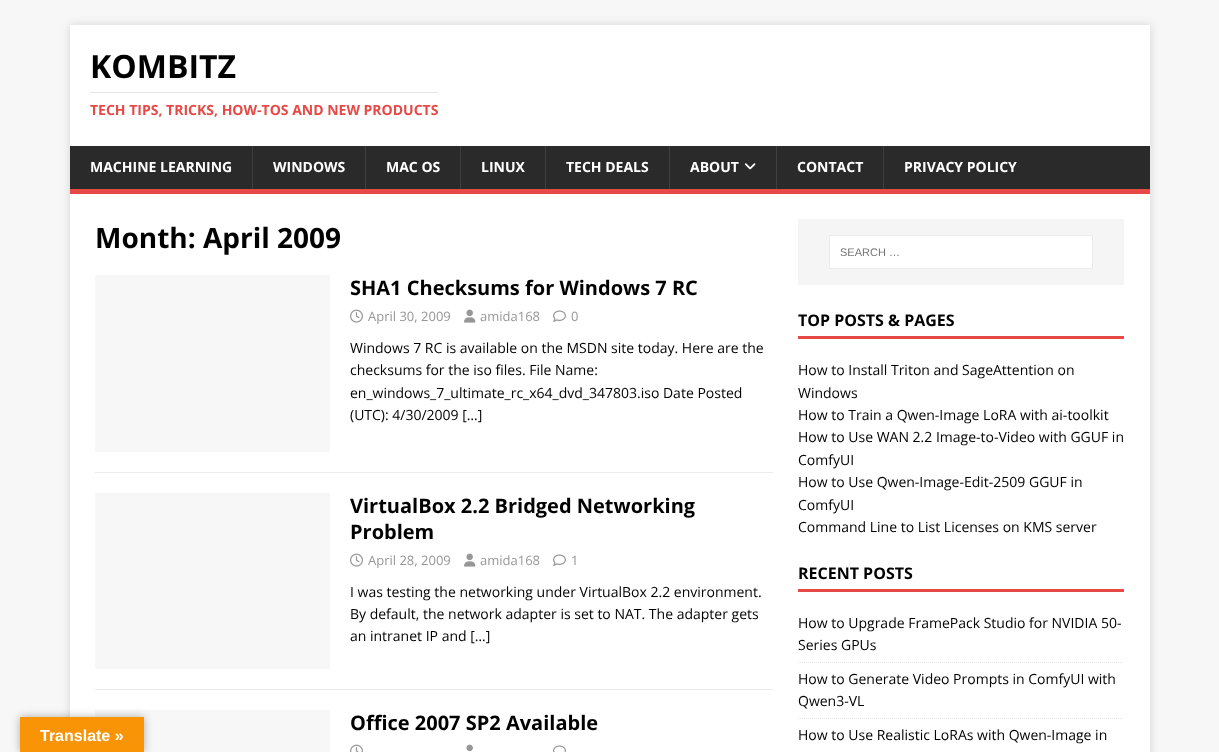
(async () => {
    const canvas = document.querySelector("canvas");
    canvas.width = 1219;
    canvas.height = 752;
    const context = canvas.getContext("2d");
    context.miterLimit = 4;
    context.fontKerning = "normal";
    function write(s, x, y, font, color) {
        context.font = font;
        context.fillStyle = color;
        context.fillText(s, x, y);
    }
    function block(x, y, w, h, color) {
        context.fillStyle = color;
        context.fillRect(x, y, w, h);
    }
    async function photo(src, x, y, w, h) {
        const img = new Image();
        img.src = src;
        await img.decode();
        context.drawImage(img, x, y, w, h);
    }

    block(0, 0, 1219, 752, "rgb(247, 247, 247)");
    context.fillStyle = "rgba(50, 50, 50, 0.17)";
    context.filter = "blur(5px)";
    context.beginPath();
    context.rect(70, 25, 1080, 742);
    context.fill();
    context.filter = "none";
    block(70, 194, 1080, 558, "rgb(255, 255, 255)");
    block(95, 710, 235, 42, "rgb(247, 247, 247)");
    context.fillStyle = "rgba(0, 0, 0, 0.3)";
    context.filter = "blur(4.5px)";
    context.beginPath();
    context.rect(20, 717, 124, 35);
    context.fill();
    context.filter = "none";
    block(20, 717, 124, 35, "rgb(248, 148, 6)");
    write("Translate »", 40, 741, "bold 16px Liberation Sans", "rgb(255, 255, 255)");
    block(70, 25, 1080, 121, "rgb(255, 255, 255)");
    write("KOMBITZ", 90, 78, "bold 32px Open Sans", "rgb(0, 0, 0)");
    block(90, 92, 348, 1, "rgb(229, 229, 229)");
    write("TECH TIPS, TRICKS, HOW-TOS AND NEW PRODUCTS", 90, 115, "bold 14px Open Sans", "rgb(230, 73, 70)");
    block(70, 146, 1080, 43, "rgb(42, 42, 42)");
    block(70, 189, 1080, 5, "rgb(230, 73, 70)");
    write("MACHINE LEARNING", 90, 172, "bold 14px Open Sans", "rgb(255, 255, 255)");
    block(252, 146, 1, 43, "rgb(63, 63, 63)");
    write("WINDOWS", 273, 172, "bold 14px Open Sans", "rgb(255, 255, 255)");
    block(365, 146, 1, 43, "rgb(63, 63, 63)");
    write("MAC OS", 386, 172, "bold 14px Open Sans", "rgb(255, 255, 255)");
    block(460, 146, 1, 43, "rgb(63, 63, 63)");
    write("LINUX", 481, 172, "bold 14px Open Sans", "rgb(255, 255, 255)");
    block(545, 146, 1, 43, "rgb(63, 63, 63)");
    write("TECH DEALS", 566, 172, "bold 14px Open Sans", "rgb(255, 255, 255)");
    block(669, 146, 1, 43, "rgb(63, 63, 63)");
    write("ABOUT", 690, 172, "bold 14px Open Sans", "rgb(255, 255, 255)");
    await photo("media/1.png", 744, 163, 12, 7);
    block(776, 146, 1, 43, "rgb(63, 63, 63)");
    write("CONTACT", 797, 172, "bold 14px Open Sans", "rgb(255, 255, 255)");
    block(883, 146, 1, 43, "rgb(63, 63, 63)");
    write("PRIVACY POLICY", 904, 172, "bold 14px Open Sans", "rgb(255, 255, 255)");
    write("Month: April 2009", 95, 248, "bold 28px Open Sans", "rgb(0, 0, 0)");
    block(95, 472, 678, 1, "rgb(235, 235, 235)");
    block(95, 275, 235, 177, "rgb(247, 247, 247)");
    write("SHA1 Checksums for Windows 7 RC", 350, 295, "bold 20px Open Sans", "rgb(0, 0, 0)");
    await photo("media/2.png", 350, 309, 13, 14);
    write("April 30, 2009", 368, 321, "13px Open Sans", "rgb(151, 151, 151)");
    await photo("media/3.png", 464, 309, 12, 14);
    write("amida168", 480, 321, "13px Open Sans", "rgb(151, 151, 151)");
    await photo("media/4.png", 553, 310, 13, 12);
    write("0", 571, 321, "13px Open Sans", "rgb(151, 151, 151)");
    write("Windows 7 RC is available on the MSDN site today. Here are the", 350, 353, "14px Open Sans", "rgb(0, 0, 0)");
    write("checksums for the iso files. File Name:", 350, 375, "14px Open Sans", "rgb(0, 0, 0)");
    write("en_windows_7_ultimate_rc_x64_dvd_347803.iso Date Posted", 350, 398, "14px Open Sans", "rgb(0, 0, 0)");
    write("(UTC): 4/30/2009 […]", 350, 420, "14px Open Sans", "rgb(0, 0, 0)");
    block(95, 689, 678, 1, "rgb(235, 235, 235)");
    block(95, 493, 235, 176, "rgb(247, 247, 247)");
    write("VirtualBox 2.2 Bridged Networking", 350, 513, "bold 20px Open Sans", "rgb(0, 0, 0)");
    write("Problem", 350, 539, "bold 20px Open Sans", "rgb(0, 0, 0)");
    await photo("media/2.png", 350, 553, 13, 14);
    write("April 28, 2009", 368, 565, "13px Open Sans", "rgb(151, 151, 151)");
    await photo("media/3.png", 464, 553, 12, 14);
    write("amida168", 480, 565, "13px Open Sans", "rgb(151, 151, 151)");
    await photo("media/4.png", 553, 554, 13, 12);
    write("1", 571, 565, "13px Open Sans", "rgb(151, 151, 151)");
    write("I was testing the networking under VirtualBox 2.2 environment.", 350, 597, "14px Open Sans", "rgb(0, 0, 0)");
    write("By default, the network adapter is set to NAT. The adapter gets", 350, 619, "14px Open Sans", "rgb(0, 0, 0)");
    write("an intranet IP and […]", 350, 641, "14px Open Sans", "rgb(0, 0, 0)");
    write("Office 2007 SP2 Available", 350, 730, "bold 20px Open Sans", "rgb(0, 0, 0)");
    await photo("media/5.png", 350, 744, 13, 8);
    await photo("media/6.png", 466, 744, 7, 8);
    await photo("media/7.png", 553, 745, 13, 7);
    block(798, 219, 326, 66, "rgb(245, 245, 245)");
    context.fillStyle = "rgb(255, 255, 255)";
    context.beginPath();
    context.rect(829.5, 235.5, 263, 33);
    context.fill();
    context.strokeStyle = "rgb(235, 235, 235)";
    context.stroke();
    write("SEARCH …", 840, 256, "11px Liberation Sans", "rgb(117, 117, 117)");
    block(798, 336, 326, 3, "rgb(230, 73, 70)");
    write("TOP POSTS & PAGES", 798, 326, "bold 16px Open Sans", "rgb(0, 0, 0)");
    write("How to Install Triton and SageAttention on", 798, 375, "14px Open Sans", "rgb(0, 0, 0)");
    write("Windows", 798, 398, "14px Open Sans", "rgb(0, 0, 0)");
    write("How to Train a Qwen-Image LoRA with ai-toolkit", 798, 420, "14px Open Sans", "rgb(0, 0, 0)");
    write("How to Use WAN 2.2 Image-to-Video with GGUF in", 798, 442, "14px Open Sans", "rgb(0, 0, 0)");
    write("ComfyUI", 798, 465, "14px Open Sans", "rgb(0, 0, 0)");
    write("How to Use Qwen-Image-Edit-2509 GGUF in", 798, 487, "14px Open Sans", "rgb(0, 0, 0)");
    write("ComfyUI", 798, 510, "14px Open Sans", "rgb(0, 0, 0)");
    write("Command Line to List Licenses on KMS server", 798, 532, "14px Open Sans", "rgb(0, 0, 0)");
    block(798, 589, 326, 3, "rgb(230, 73, 70)");
    write("RECENT POSTS", 798, 579, "bold 16px Open Sans", "rgb(0, 0, 0)");
    context.beginPath();
    context.moveTo(798, 662.5);
    context.lineTo(1124, 662.5);
    context.strokeStyle = "rgb(229, 229, 229)";
    context.setLineDash([1, 1]);
    context.stroke();
    write("How to Upgrade FramePack Studio for NVIDIA 50-", 798, 628, "14px Open Sans", "rgb(0, 0, 0)");
    write("Series GPUs", 798, 650, "14px Open Sans", "rgb(0, 0, 0)");
    context.beginPath();
    context.moveTo(798, 718.5);
    context.lineTo(1124, 718.5);
    context.stroke();
    write("How to Generate Video Prompts in ComfyUI with", 798, 684, "14px Open Sans", "rgb(0, 0, 0)");
    write("Qwen3-VL", 798, 706, "14px Open Sans", "rgb(0, 0, 0)");
    write("How to Use Realistic LoRAs with Qwen-Image in", 798, 740, "14px Open Sans", "rgb(0, 0, 0)");
})();
